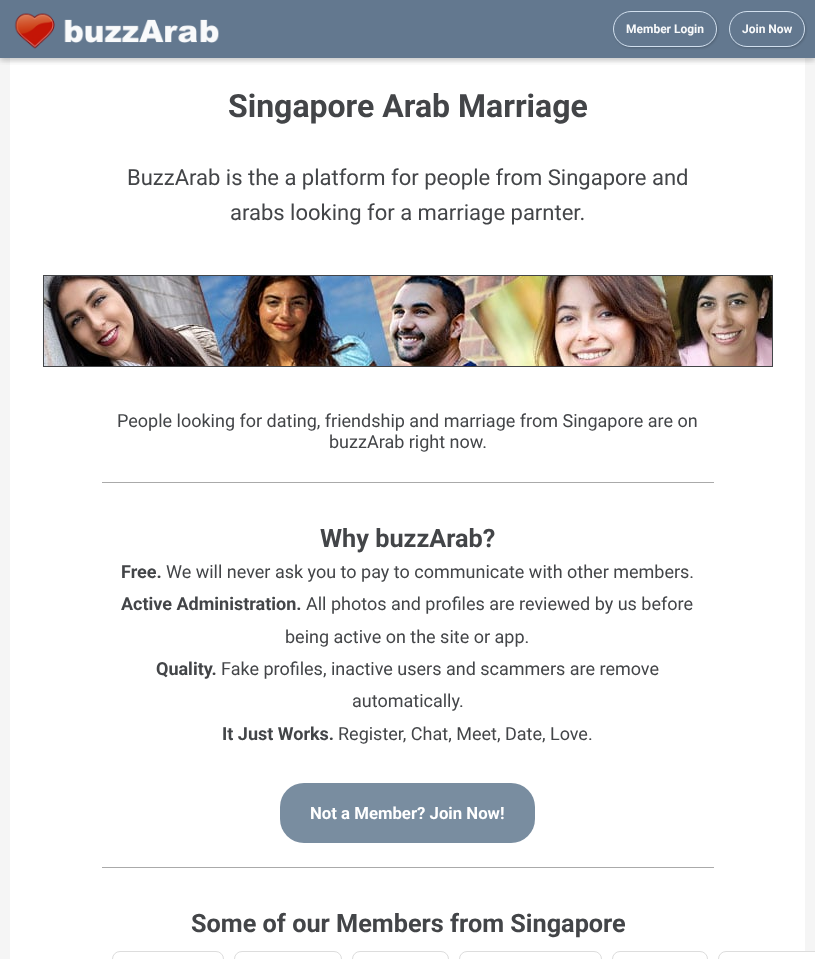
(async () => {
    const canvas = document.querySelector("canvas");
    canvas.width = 815;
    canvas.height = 959;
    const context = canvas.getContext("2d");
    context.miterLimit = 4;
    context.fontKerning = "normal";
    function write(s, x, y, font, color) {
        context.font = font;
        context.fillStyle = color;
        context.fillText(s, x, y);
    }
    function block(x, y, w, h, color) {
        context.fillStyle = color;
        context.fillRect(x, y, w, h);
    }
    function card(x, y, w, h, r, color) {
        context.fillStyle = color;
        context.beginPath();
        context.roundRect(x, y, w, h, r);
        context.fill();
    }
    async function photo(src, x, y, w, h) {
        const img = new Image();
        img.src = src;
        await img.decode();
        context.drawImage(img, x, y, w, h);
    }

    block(0, 0, 815, 959, "rgb(245, 245, 245)");
    card(10, 25, 795, 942, 8, "rgb(255, 255, 255)");
    context.save();
    context.beginPath();
    context.rect(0, 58, 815, 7);
    context.clip();
    context.fillStyle = "rgba(0, 0, 0, 0.12)";
    context.filter = "blur(5px)";
    context.beginPath();
    context.rect(0, 2, 815, 58);
    context.fill();
    context.filter = "none";
    context.restore();
    context.save();
    context.beginPath();
    context.rect(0, 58, 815, 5);
    context.clip();
    context.fillStyle = "rgba(0, 0, 0, 0.15)";
    context.filter = "blur(2.5px)";
    context.beginPath();
    context.rect(0, 2, 815, 58);
    context.fill();
    context.filter = "none";
    context.restore();
    block(0, 0, 815, 58, "rgba(93, 114, 138, 0.96)");
    await photo("media/1.png", 14, 13, 205, 36);
    context.save();
    context.beginPath();
    context.moveTo(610, 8);
    context.lineTo(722, 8);
    context.lineTo(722, 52);
    context.lineTo(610, 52);
    context.closePath();
    context.moveTo(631, 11);
    context.lineTo(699, 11);
    context.bezierCurveTo(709, 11, 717, 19, 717, 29);
    context.bezierCurveTo(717, 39, 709, 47, 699, 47);
    context.lineTo(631, 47);
    context.bezierCurveTo(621, 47, 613, 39, 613, 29);
    context.bezierCurveTo(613, 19, 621, 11, 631, 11);
    context.closePath();
    context.clip("evenodd");
    context.fillStyle = "rgba(0, 0, 0, 0.19)";
    context.filter = "blur(1px)";
    context.beginPath();
    context.roundRect(614, 12, 104, 36, 18);
    context.fill();
    context.filter = "none";
    context.restore();
    context.beginPath();
    context.roundRect(613.5, 11.5, 103, 35, 17.5);
    context.strokeStyle = "rgba(213, 227, 241, 0.96)";
    context.stroke();
    write("Member Login", 626, 33, "bold 12px Roboto", "rgb(249, 250, 251)");
    context.save();
    context.beginPath();
    context.moveTo(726, 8);
    context.lineTo(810, 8);
    context.lineTo(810, 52);
    context.lineTo(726, 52);
    context.closePath();
    context.moveTo(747, 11);
    context.lineTo(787, 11);
    context.bezierCurveTo(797, 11, 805, 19, 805, 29);
    context.bezierCurveTo(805, 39, 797, 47, 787, 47);
    context.lineTo(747, 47);
    context.bezierCurveTo(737, 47, 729, 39, 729, 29);
    context.bezierCurveTo(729, 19, 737, 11, 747, 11);
    context.closePath();
    context.clip("evenodd");
    context.fillStyle = "rgba(0, 0, 0, 0.19)";
    context.filter = "blur(1px)";
    context.beginPath();
    context.roundRect(730, 12, 76, 36, 18);
    context.fill();
    context.filter = "none";
    context.restore();
    context.beginPath();
    context.roundRect(729.5, 11.5, 75, 35, 17.5);
    context.stroke();
    write("Join Now", 742, 33, "bold 12px Roboto", "rgb(249, 250, 251)");
    write("Singapore Arab Marriage", 228, 117, "bold 32px Roboto", "rgb(67, 69, 72)");
    write("BuzzArab is the a platform for people from Singapore and", 127, 185, "22px Roboto", "rgb(67, 69, 72)");
    write("arabs looking for a marriage parnter.", 230, 220, "22px Roboto", "rgb(67, 69, 72)");
    context.strokeStyle = "rgb(67, 69, 72)";
    context.strokeRect(43.5, 275.5, 729, 91);
    await photo("media/2.png", 44, 276, 728, 90);
    write("People looking for dating, friendship and marriage from Singapore are on", 117, 427, "18px Roboto", "rgb(67, 69, 72)");
    write("buzzArab right now.", 329, 448, "18px Roboto", "rgb(67, 69, 72)");
    block(102, 482, 612, 1, "rgb(170, 170, 170)");
    write("Why buzzArab?", 320, 547, "bold 25.25px Roboto", "rgb(67, 69, 72)");
    write("Free.", 121, 578, "bold 18px Roboto", "rgb(67, 69, 72)");
    write("We will never ask you to pay to communicate with other members.", 166, 578, "18px Roboto", "rgb(67, 69, 72)");
    write("Active Administration.", 121, 610, "bold 18px Roboto", "rgb(67, 69, 72)");
    write("All photos and profiles are reviewed by us before", 306, 610, "18px Roboto", "rgb(67, 69, 72)");
    write("being active on the site or app.", 285, 643, "18px Roboto", "rgb(67, 69, 72)");
    write("Quality.", 156, 675, "bold 18px Roboto", "rgb(67, 69, 72)");
    write("Fake profiles, inactive users and scammers are remove", 221, 675, "18px Roboto", "rgb(67, 69, 72)");
    write("automatically.", 352, 707, "18px Roboto", "rgb(67, 69, 72)");
    write("It Just Works.", 222, 740, "bold 18px Roboto", "rgb(67, 69, 72)");
    write("Register, Chat, Meet, Date, Love.", 338, 740, "18px Roboto", "rgb(67, 69, 72)");
    card(280, 783, 255, 60, 24, "rgb(121, 141, 160)");
    write("Not a Member? Join Now!", 310, 819, "bold 16.75px Roboto", "rgb(255, 255, 255)");
    block(102, 867, 612, 1, "rgb(170, 170, 170)");
    write("Some of our Members from Singapore", 191, 932, "bold 25.25px Roboto", "rgb(67, 69, 72)");
    context.beginPath();
    context.roundRect(112.5, 951.5, 111, 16, 7.5);
    context.strokeStyle = "rgb(221, 221, 221)";
    context.stroke();
    context.beginPath();
    context.roundRect(234.5, 951.5, 107, 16, 7.5);
    context.stroke();
    context.beginPath();
    context.roundRect(352.5, 951.5, 96, 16, 7.5);
    context.stroke();
    context.beginPath();
    context.roundRect(459.5, 951.5, 142, 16, 7.5);
    context.stroke();
    context.beginPath();
    context.roundRect(612.5, 951.5, 95, 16, 7.5);
    context.stroke();
    context.fillStyle = "rgb(255, 255, 255)";
    context.beginPath();
    context.roundRect(718.5, 951.5, 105, 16, 7.5);
    context.fill();
    context.stroke();
})();
